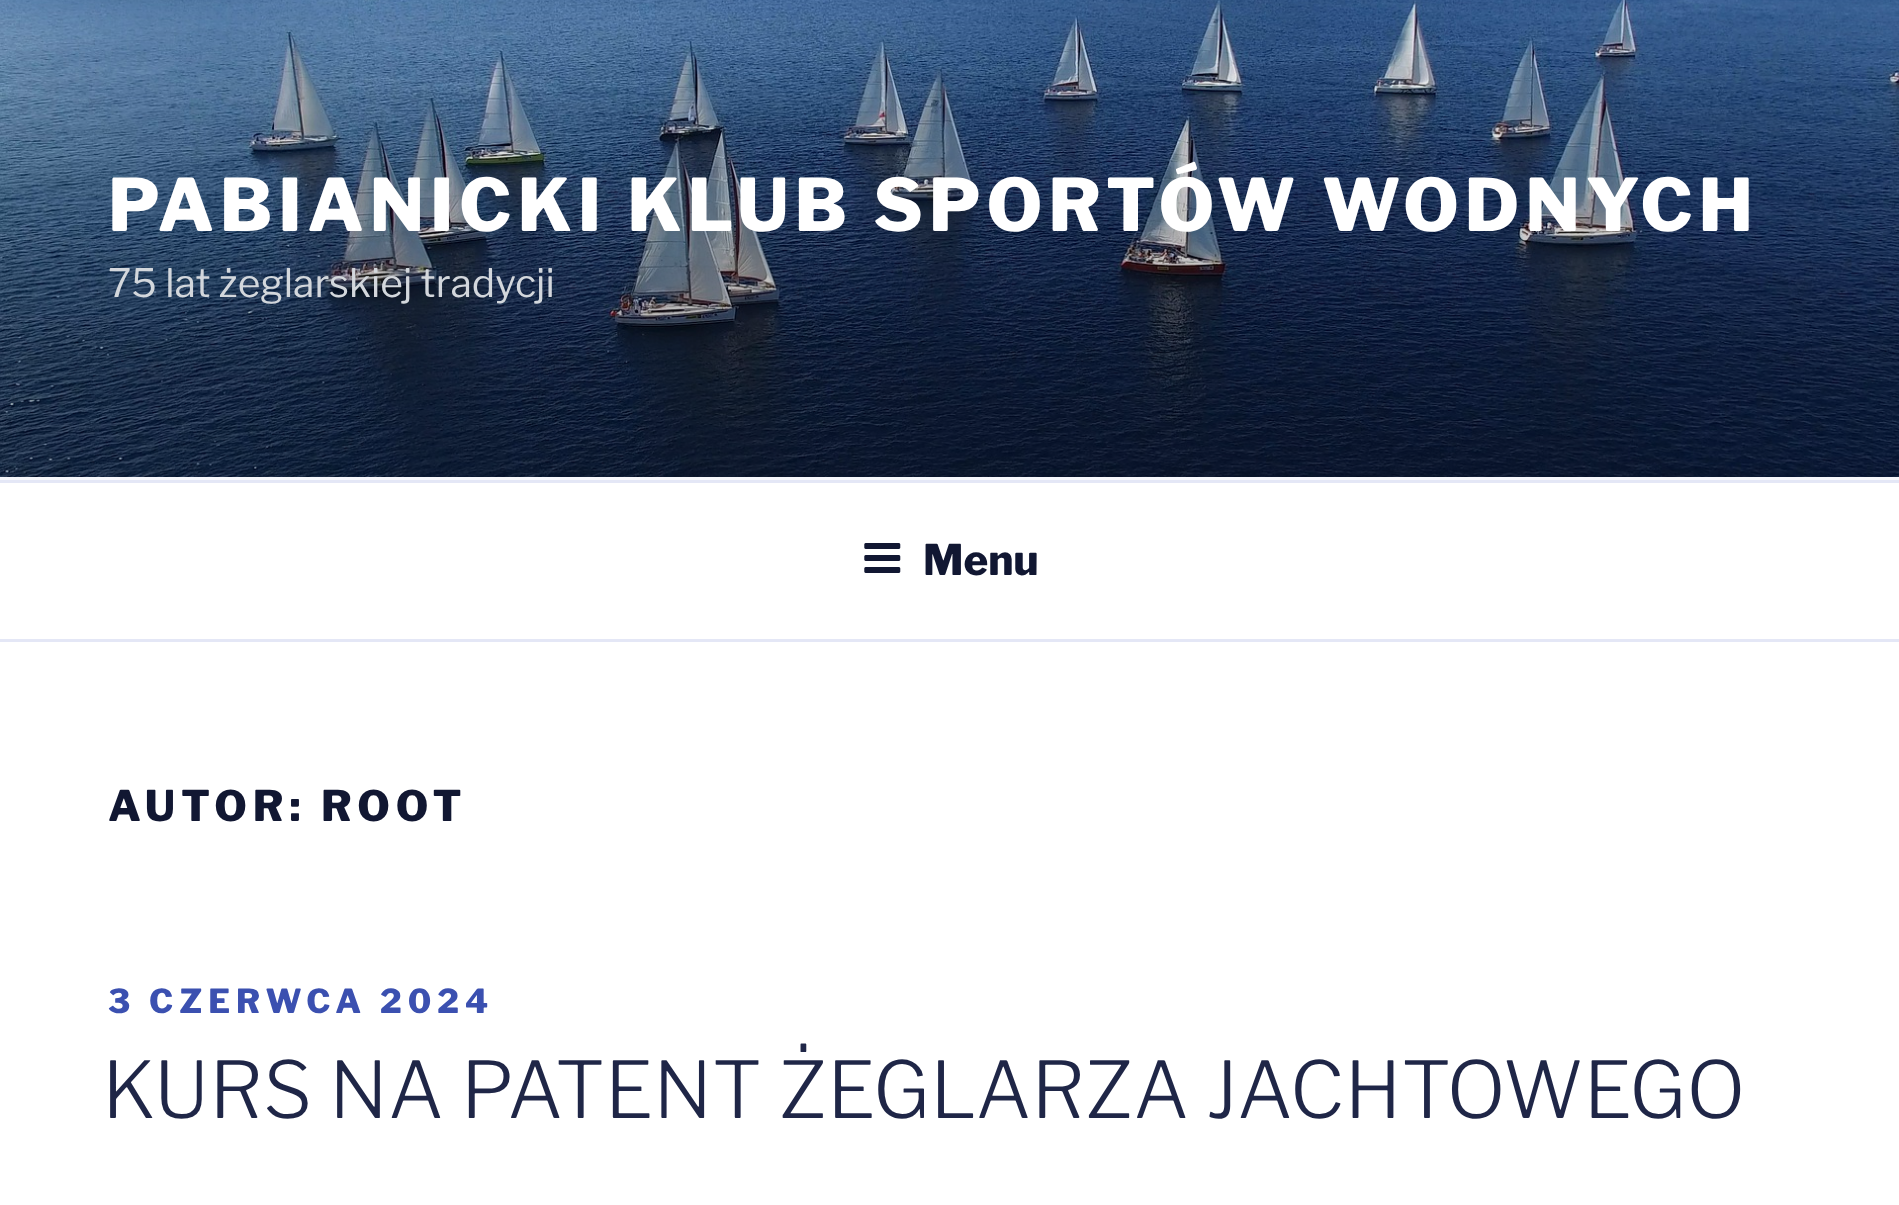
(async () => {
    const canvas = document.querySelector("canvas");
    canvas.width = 1899;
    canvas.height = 1205;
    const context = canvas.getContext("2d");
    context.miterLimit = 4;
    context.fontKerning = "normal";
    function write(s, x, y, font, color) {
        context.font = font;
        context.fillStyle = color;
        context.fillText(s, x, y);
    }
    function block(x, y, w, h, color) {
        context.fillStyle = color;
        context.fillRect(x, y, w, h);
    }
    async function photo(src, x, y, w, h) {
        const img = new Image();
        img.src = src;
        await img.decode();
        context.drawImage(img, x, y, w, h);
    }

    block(0, 0, 1899, 1205, "rgb(255, 255, 255)");
    block(0, 477, 1899, 3, "rgb(247, 248, 252)");
    await photo("media/1.png", 0, 0, 1899, 477);
    context.letterSpacing = "5.75px";
    write("PABIANICKI KLUB SPORTÓW WODNYCH", 108, 231, "100 72px Libre Franklin", "rgb(255, 255, 255)");
    context.letterSpacing = "0px";
    write("75 lat żeglarskiej tradycji", 108, 297, "100 39px 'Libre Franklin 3'", "rgb(211, 215, 220)");
    block(0, 480, 1899, 3, "rgb(228, 231, 246)");
    block(0, 639, 1899, 3, "rgb(228, 231, 246)");
    await photo("media/2.png", 864, 543, 37, 30);
    write("Menu", 923, 575, "100 42px Libre Franklin", "rgb(17, 23, 50)");
    context.letterSpacing = "5.9px";
    write("AUTOR: ROOT", 108, 821, "100 42px Libre Franklin", "rgb(17, 23, 50)");
    context.letterSpacing = "6px";
    write("3 CZERWCA 2024", 108, 1013, "100 33px Libre Franklin", "rgb(59, 80, 176)");
    context.letterSpacing = "0px";
    write("KURS NA PATENT ŻEGLARZA JACHTOWEGO", 102, 1118, "100 78px 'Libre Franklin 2'", "rgb(31, 38, 71)");
})();
